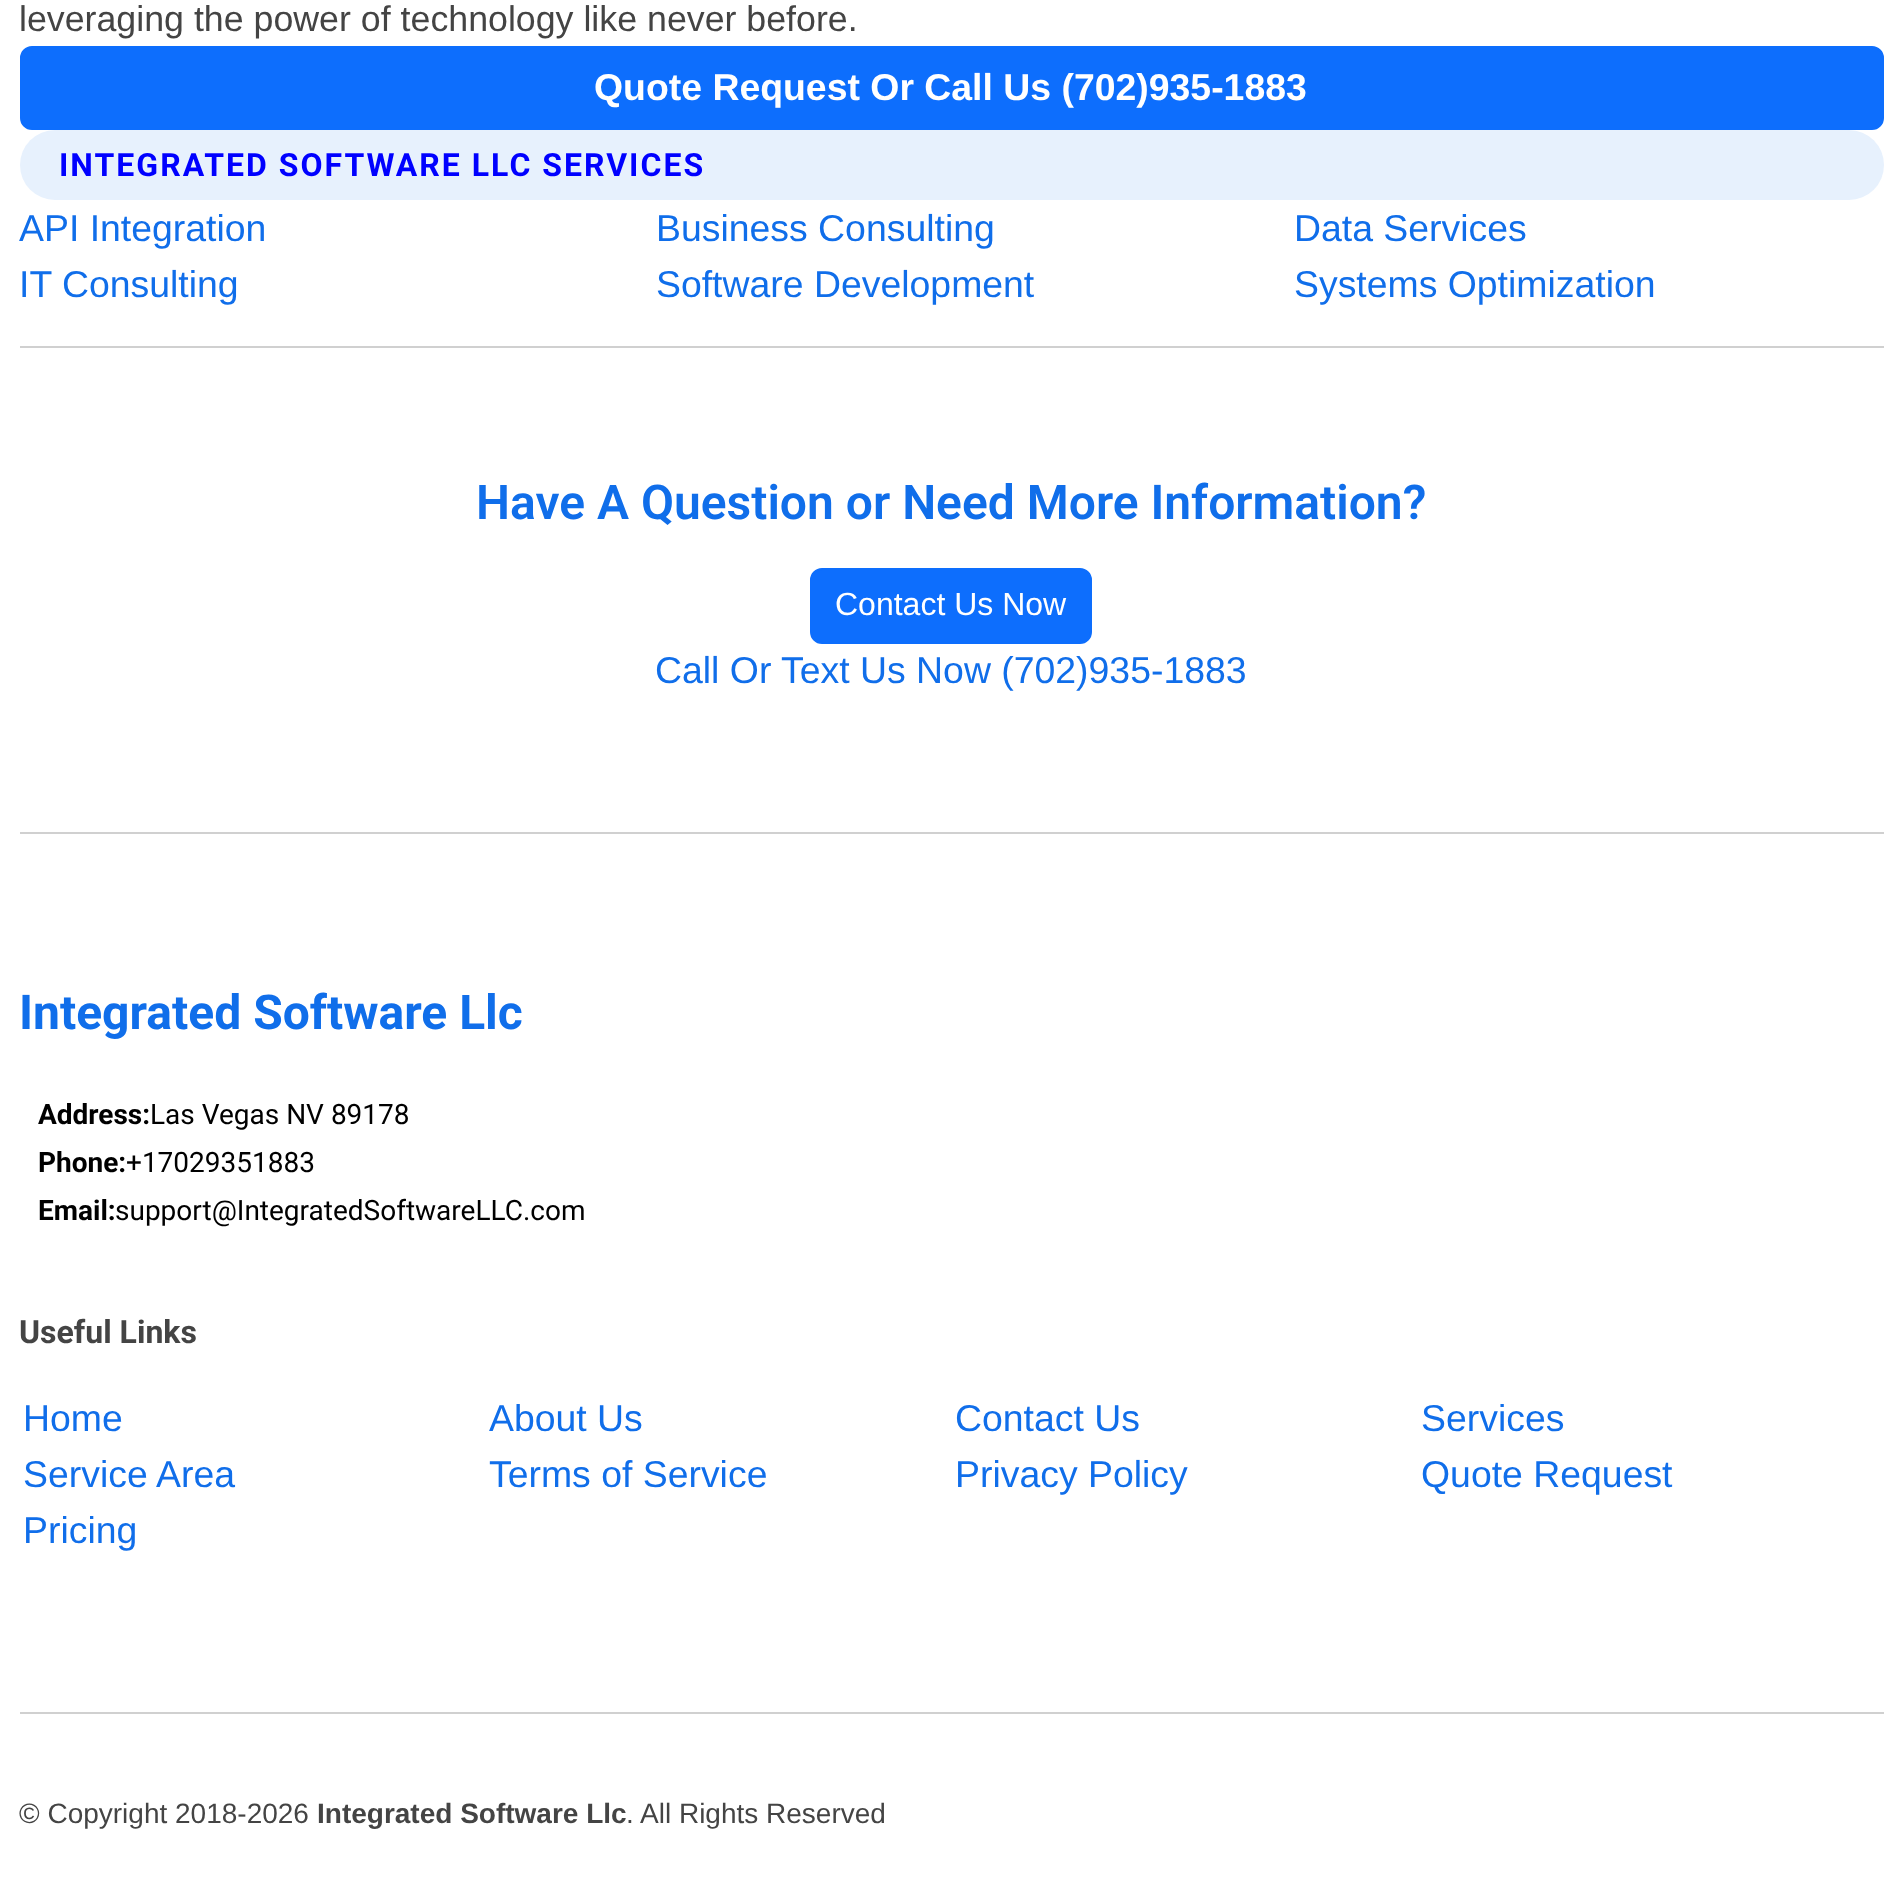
(async () => {
    const canvas = document.querySelector("canvas");
    canvas.width = 1901;
    canvas.height = 1901;
    const context = canvas.getContext("2d");
    context.miterLimit = 4;
    context.fontKerning = "normal";
    function write(s, x, y, font, color) {
        context.font = font;
        context.fillStyle = color;
        context.fillText(s, x, y);
    }
    function block(x, y, w, h, color) {
        context.fillStyle = color;
        context.fillRect(x, y, w, h);
    }
    function card(x, y, w, h, r, color) {
        context.fillStyle = color;
        context.beginPath();
        context.roundRect(x, y, w, h, r);
        context.fill();
    }

    block(0, 0, 1901, 1901, "rgb(255, 255, 255)");
    write("leveraging the power of technology like never before.", 19, 31, "35.75px Liberation Sans", "rgb(68, 68, 68)");
    context.fillStyle = "rgb(13, 110, 253)";
    context.beginPath();
    context.roundRect(21, 47, 1862, 82, 11);
    context.fill();
    context.strokeStyle = "rgb(13, 110, 253)";
    context.lineWidth = 2;
    context.stroke();
    write("Quote Request Or Call Us (702)935-1883", 594, 100, "bold 37.4px Liberation Sans", "rgb(255, 255, 255)");
    card(20, 130, 1864, 70, 35, "rgb(231, 241, 253)");
    context.letterSpacing = "2px";
    write("INTEGRATED SOFTWARE LLC SERVICES", 59, 176, "bold 32px Roboto", "rgb(0, 0, 255)");
    context.letterSpacing = "0px";
    write("API Integration", 19, 241, "37.4px Liberation Sans", "rgb(16, 110, 234)");
    write("Business Consulting", 656, 241, "37.4px Liberation Sans", "rgb(16, 110, 234)");
    write("Data Services", 1294, 241, "37.4px Liberation Sans", "rgb(16, 110, 234)");
    write("IT Consulting", 19, 297, "37.4px Liberation Sans", "rgb(16, 110, 234)");
    write("Software Development", 656, 297, "37.4px Liberation Sans", "rgb(16, 110, 234)");
    write("Systems Optimization", 1294, 297, "37.4px Liberation Sans", "rgb(16, 110, 234)");
    block(20, 346, 1864, 2, "rgb(208, 208, 208)");
    write("Have A Question or Need More Information?", 476, 519, "600 48px Roboto", "rgb(16, 110, 234)");
    context.fillStyle = "rgb(13, 110, 253)";
    context.beginPath();
    context.roundRect(811, 569, 280, 74, 11);
    context.fill();
    context.stroke();
    write("Contact Us Now", 835, 615, "32px Liberation Sans", "rgb(255, 255, 255)");
    write("Call Or Text Us Now (702)935-1883", 655, 683, "37.4px Liberation Sans", "rgb(16, 110, 234)");
    block(20, 832, 1864, 2, "rgb(208, 208, 208)");
    write("Integrated Software Llc", 19, 1029, "bold 48px Roboto", "rgb(16, 110, 234)");
    write("Address:", 38, 1124, "bold 28px Roboto", "rgb(0, 0, 0)");
    write("Las Vegas NV 89178", 150, 1124, "28px Roboto", "rgb(0, 0, 0)");
    write("Phone:", 38, 1172, "bold 28px Roboto", "rgb(0, 0, 0)");
    write("+17029351883", 126, 1172, "28px Roboto", "rgb(0, 0, 0)");
    write("Email:", 38, 1220, "bold 28px Roboto", "rgb(0, 0, 0)");
    write("support@IntegratedSoftwareLLC.com", 115, 1220, "28px Roboto", "rgb(0, 0, 0)");
    write("Useful Links", 19, 1343, "bold 32px Roboto", "rgb(68, 68, 68)");
    write("Home", 23, 1431, "37.4px Liberation Sans", "rgb(16, 110, 234)");
    write("About Us", 489, 1431, "37.4px Liberation Sans", "rgb(16, 110, 234)");
    write("Contact Us", 955, 1431, "37.4px Liberation Sans", "rgb(16, 110, 234)");
    write("Services", 1421, 1431, "37.4px Liberation Sans", "rgb(16, 110, 234)");
    write("Service Area", 23, 1487, "37.4px Liberation Sans", "rgb(16, 110, 234)");
    write("Terms of Service", 489, 1487, "37.4px Liberation Sans", "rgb(16, 110, 234)");
    write("Privacy Policy", 955, 1487, "37.4px Liberation Sans", "rgb(16, 110, 234)");
    write("Quote Request", 1421, 1487, "37.4px Liberation Sans", "rgb(16, 110, 234)");
    write("Pricing", 23, 1543, "37.4px Liberation Sans", "rgb(16, 110, 234)");
    block(20, 1712, 1864, 2, "rgb(208, 208, 208)");
    write("© Copyright 2018-2026", 19, 1823, "28px Liberation Sans", "rgb(68, 68, 68)");
    write("Integrated Software Llc", 317, 1823, "bold 28px Liberation Sans", "rgb(68, 68, 68)");
    write(". All Rights Reserved", 626, 1823, "28px Liberation Sans", "rgb(68, 68, 68)");
})();
